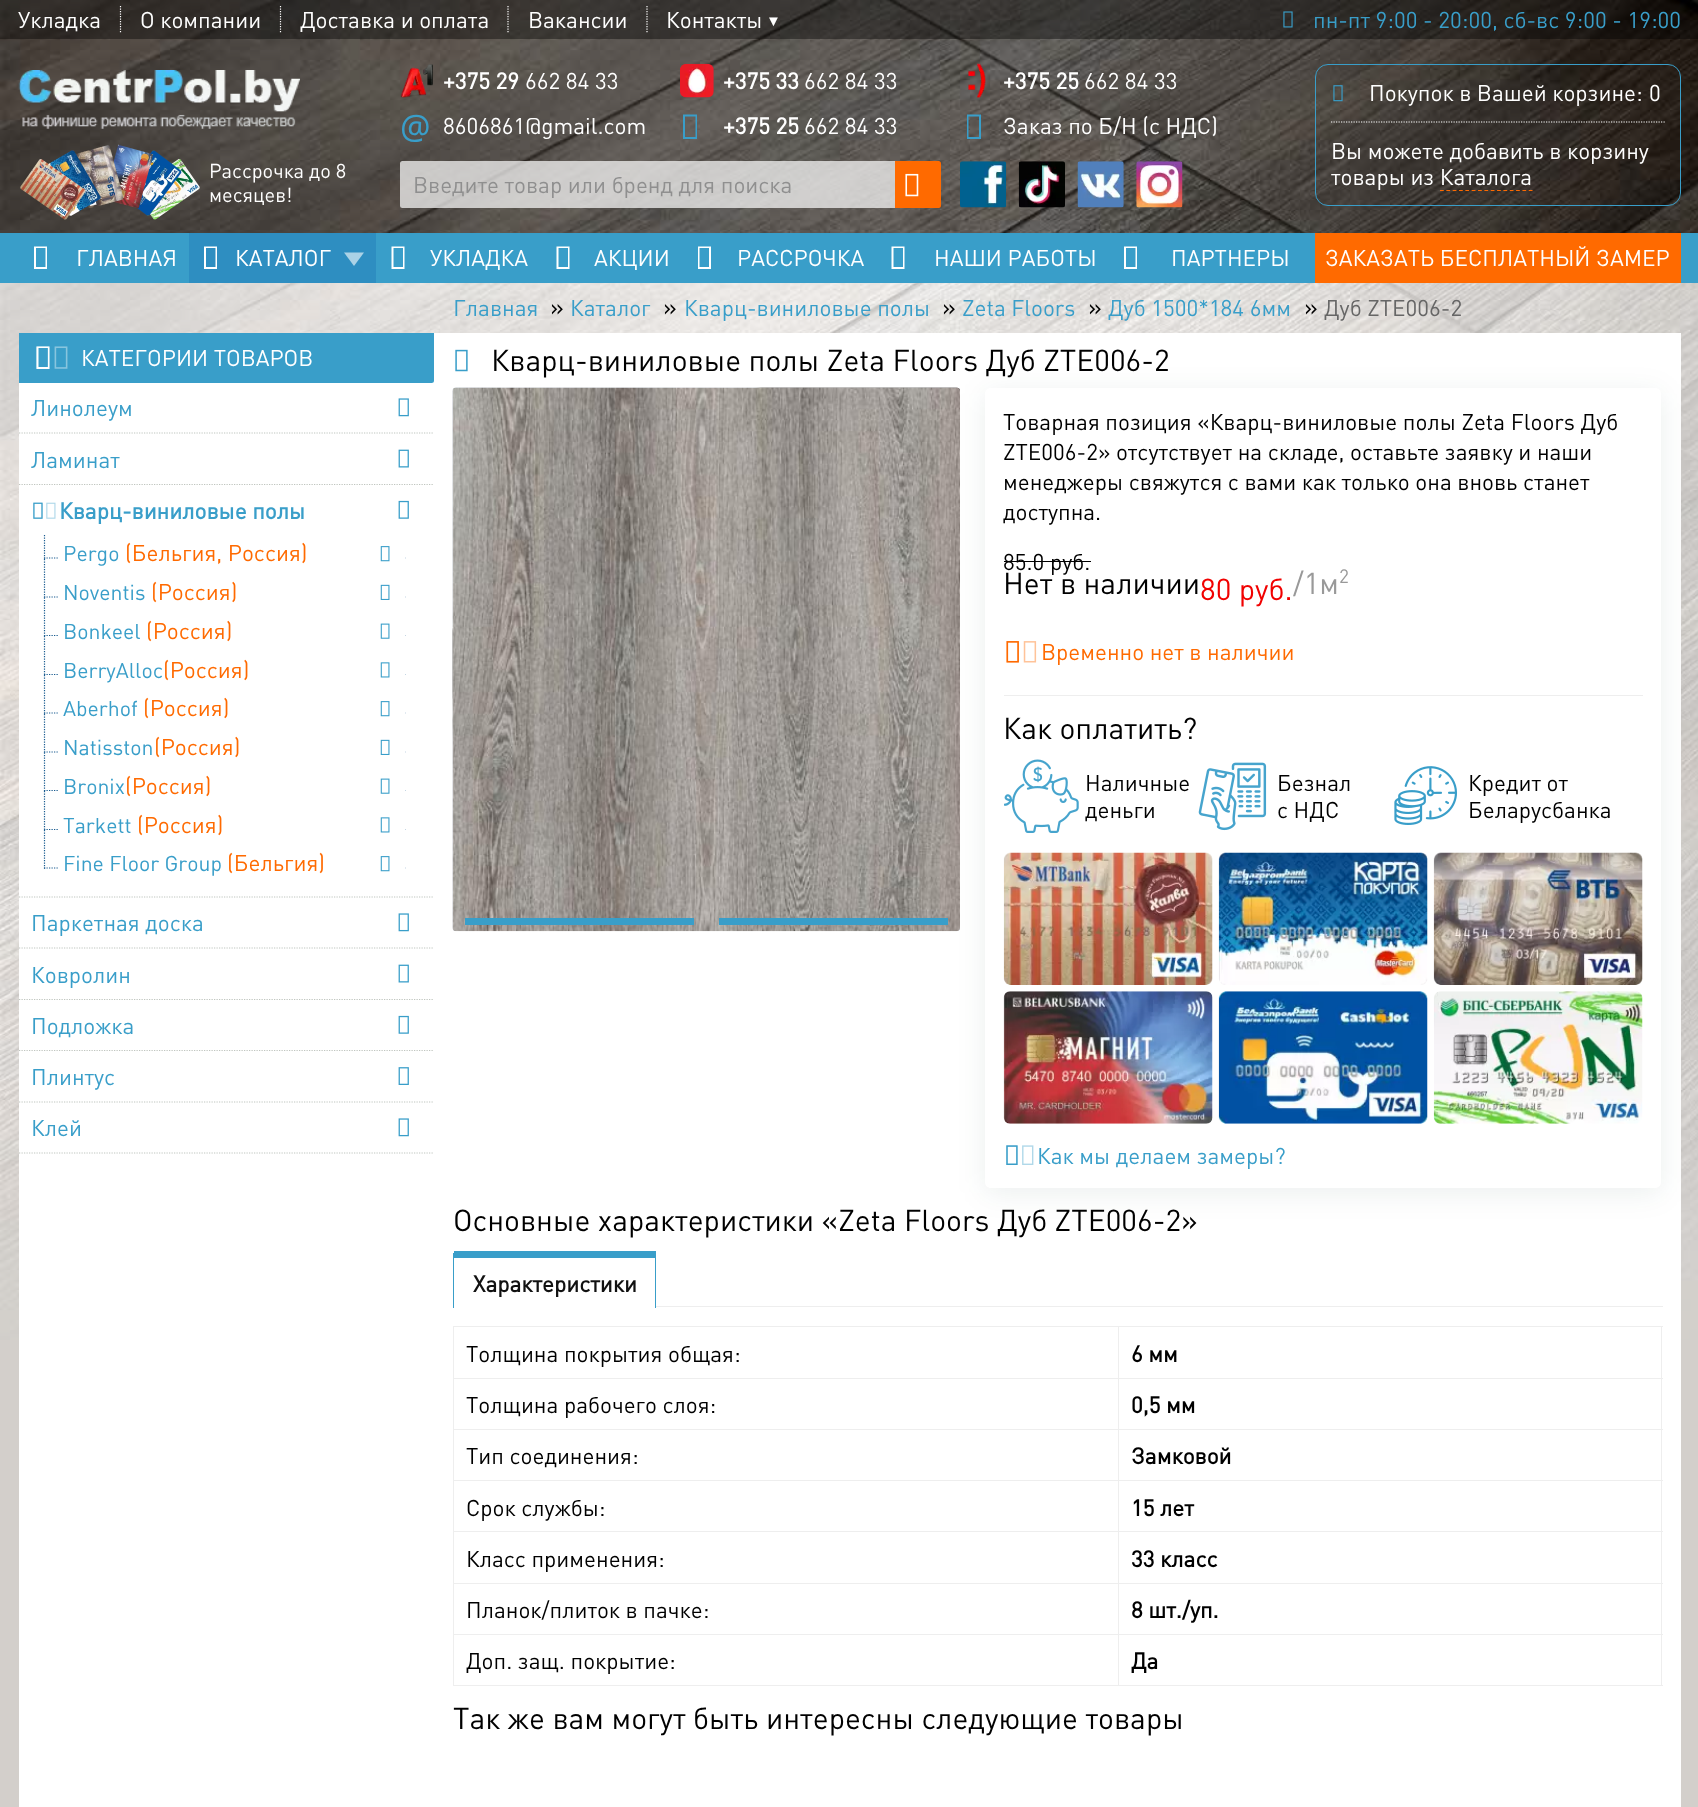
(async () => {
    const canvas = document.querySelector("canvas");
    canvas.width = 1698;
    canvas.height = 1807;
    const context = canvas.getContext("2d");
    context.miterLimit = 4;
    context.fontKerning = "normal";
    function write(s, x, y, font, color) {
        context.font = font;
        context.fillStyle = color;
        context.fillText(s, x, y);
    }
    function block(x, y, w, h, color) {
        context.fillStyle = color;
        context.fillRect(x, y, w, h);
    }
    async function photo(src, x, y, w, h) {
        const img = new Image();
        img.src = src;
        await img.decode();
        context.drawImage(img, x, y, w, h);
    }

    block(0, 0, 1698, 1807, "rgb(107, 95, 83)");
    await photo("media/1.png", 0, 0, 1698, 1340);
    block(0, 0, 1698, 39, "rgba(0, 0, 0, 0.7)");
    context.beginPath();
    context.moveTo(120.5, 6);
    context.lineTo(120.5, 32.5);
    context.strokeStyle = "rgb(255, 255, 255)";
    context.lineWidth = 1.2;
    context.setLineDash([1.25, 1.25]);
    context.stroke();
    write("Укладка", 18, 28, "22.5px DIN", "rgb(255, 255, 255)");
    context.beginPath();
    context.moveTo(280.5, 6);
    context.lineTo(280.5, 32.5);
    context.stroke();
    write("О компании", 140, 28, "22.5px DIN", "rgb(255, 255, 255)");
    context.beginPath();
    context.moveTo(508, 6);
    context.lineTo(508, 32.5);
    context.stroke();
    write("Доставка и оплата", 300, 28, "22.5px DIN", "rgb(255, 255, 255)");
    context.beginPath();
    context.moveTo(647, 6);
    context.lineTo(647, 32.5);
    context.stroke();
    write("Вакансии", 528, 28, "22.5px DIN", "rgb(255, 255, 255)");
    write("Контакты", 666, 28, "22.5px DIN", "rgb(255, 255, 255)");
    write("▼", 766, 26, "15px Liberation Sans", "rgb(255, 255, 255)");
    await photo("media/2.png", 1283, 11, 10, 17);
    write("пн-пт 9:00 - 20:00, сб-вс 9:00 - 19:00", 1313, 28, "22.5px DIN", "rgb(57, 158, 201)");
    block(0, 39, 1698, 194, "rgba(0, 0, 0, 0.5)");
    await photo("media/3.png", 18, 70, 282, 59);
    await photo("media/9.png", 150, 158, 50, 62);
    await photo("media/7.png", 136, 150, 46, 66);
    await photo("media/5.png", 113, 144, 41, 65);
    await photo("media/4.png", 75, 145, 49, 63);
    await photo("media/6.png", 48, 150, 53, 66);
    await photo("media/8.png", 20, 159, 66, 61);
    write("Рассрочка до 8", 209, 178, "20px DIN", "rgb(255, 255, 255)");
    write("месяцев!", 209, 202, "20px DIN", "rgb(255, 255, 255)");
    await photo("media/10.png", 400, 64, 33, 34);
    write("+375 29", 443, 89, "bold 22.5px DIN", "rgb(255, 255, 255)");
    write("662 84 33", 525, 89, "22.5px DIN", "rgb(255, 255, 255)");
    write("@", 400, 139, "34px Noto Sans", "rgb(57, 158, 201)");
    write("8606861@gmail.com", 443, 134, "22.5px DIN", "rgb(255, 255, 255)");
    await photo("media/11.png", 680, 63, 34, 35);
    write("+375 33", 723, 89, "bold 22.5px DIN", "rgb(255, 255, 255)");
    write("662 84 33", 804, 89, "22.5px DIN", "rgb(255, 255, 255)");
    context.fillStyle = "rgb(57, 158, 201)";
    context.beginPath();
    context.moveTo(683, 139);
    context.lineTo(683, 114.5);
    context.lineTo(697, 114.5);
    context.lineTo(697, 139);
    context.closePath();
    context.moveTo(685, 137);
    context.lineTo(695.5, 137);
    context.lineTo(695.5, 116.5);
    context.lineTo(685, 116.5);
    context.closePath();
    context.fill();
    write("+375 25", 723, 134, "bold 22.5px DIN", "rgb(255, 255, 255)");
    write("662 84 33", 804, 134, "22.5px DIN", "rgb(255, 255, 255)");
    await photo("media/12.png", 968, 63, 18, 35);
    write("+375 25", 1003, 89, "bold 22.5px DIN", "rgb(255, 255, 255)");
    write("662 84 33", 1084, 89, "22.5px DIN", "rgb(255, 255, 255)");
    context.fillStyle = "rgb(57, 158, 201)";
    context.beginPath();
    context.moveTo(967, 139);
    context.lineTo(967, 114.5);
    context.lineTo(981, 114.5);
    context.lineTo(981, 139);
    context.closePath();
    context.moveTo(968.5, 137);
    context.lineTo(979, 137);
    context.lineTo(979, 116.5);
    context.lineTo(968.5, 116.5);
    context.closePath();
    context.fill();
    write("Заказ по Б/Н (с НДС)", 1003, 134, "22.5px DIN", "rgb(255, 255, 255)");
    context.fillStyle = "rgba(255, 255, 255, 0.7)";
    context.beginPath();
    context.roundRect(400, 161, 495, 47, [2.5, 0, 0, 2.5]);
    context.fill();
    write("Введите товар или бренд для поиска", 413, 193, "22.5px DIN", "rgb(143, 143, 143)");
    context.fillStyle = "rgb(255, 106, 0)";
    context.beginPath();
    context.roundRect(895, 161, 46, 47, [0, 2.5, 2.5, 0]);
    context.fill();
    await photo("media/13.png", 905, 173, 14, 24);
    await photo("media/14.png", 960, 161, 47, 47);
    await photo("media/15.png", 1018, 161, 47, 47);
    await photo("media/16.png", 1077, 161, 47, 47);
    await photo("media/17.png", 1136, 161, 47, 47);
    context.beginPath();
    context.roundRect(1315.5, 64.5, 365, 141, 12.5);
    context.strokeStyle = "rgb(57, 158, 201)";
    context.lineWidth = 1;
    context.setLineDash([]);
    context.stroke();
    await photo("media/18.png", 1333, 85, 10, 17);
    write("Покупок в Вашей корзине:", 1369, 101, "22.5px DIN", "rgb(255, 255, 255)");
    write("0", 1649, 101, "22.5px DIN", "rgb(255, 255, 255)");
    context.beginPath();
    context.moveTo(1331, 122);
    context.lineTo(1665, 122);
    context.strokeStyle = "rgb(255, 255, 255)";
    context.lineWidth = 1.2;
    context.setLineDash([1.25, 1.25]);
    context.stroke();
    write("Вы можете добавить в корзину", 1331, 159, "22.5px DIN", "rgb(255, 255, 255)");
    write("товары из Каталога", 1331, 185, "22.5px DIN", "rgb(255, 255, 255)");
    context.beginPath();
    context.moveTo(1440, 190.5);
    context.lineTo(1532.5, 190.5);
    context.strokeStyle = "rgb(255, 106, 0)";
    context.setLineDash([3.75, 2.59]);
    context.stroke();
    block(0, 233, 1698, 50, "rgb(57, 158, 201)");
    context.fillStyle = "rgb(255, 255, 255)";
    context.beginPath();
    context.moveTo(34, 269);
    context.lineTo(34, 246.5);
    context.lineTo(47, 246.5);
    context.lineTo(47, 269);
    context.closePath();
    context.moveTo(36, 267);
    context.lineTo(45.5, 267);
    context.lineTo(45.5, 248);
    context.lineTo(36, 248);
    context.closePath();
    context.fill();
    write("ГЛАВНАЯ", 76, 266, "22.5px DIN", "rgb(255, 255, 255)");
    block(189, 233, 187, 50, "rgb(46, 142, 193)");
    context.fillStyle = "rgb(255, 255, 255)";
    context.beginPath();
    context.moveTo(204, 269);
    context.lineTo(204, 246.5);
    context.lineTo(217, 246.5);
    context.lineTo(217, 269);
    context.closePath();
    context.moveTo(206, 267);
    context.lineTo(215.5, 267);
    context.lineTo(215.5, 248);
    context.lineTo(206, 248);
    context.closePath();
    context.fill();
    write("КАТАЛОГ", 235, 266, "22.5px DIN", "rgb(255, 255, 255)");
    context.fillStyle = "rgb(171, 210, 230)";
    context.beginPath();
    context.moveTo(344, 252.5);
    context.lineTo(364, 252.5);
    context.lineTo(354, 266);
    context.closePath();
    context.fill();
    context.fillStyle = "rgb(255, 255, 255)";
    context.beginPath();
    context.moveTo(391.5, 269);
    context.lineTo(391.5, 246.5);
    context.lineTo(404.5, 246.5);
    context.lineTo(404.5, 269);
    context.closePath();
    context.moveTo(393.5, 267);
    context.lineTo(403, 267);
    context.lineTo(403, 248);
    context.lineTo(393.5, 248);
    context.closePath();
    context.fill();
    write("УКЛАДКА", 430, 266, "22.5px DIN", "rgb(255, 255, 255)");
    context.beginPath();
    context.moveTo(556.5, 269);
    context.lineTo(556.5, 246.5);
    context.lineTo(569.5, 246.5);
    context.lineTo(569.5, 269);
    context.closePath();
    context.moveTo(558.5, 267);
    context.lineTo(568, 267);
    context.lineTo(568, 248);
    context.lineTo(558.5, 248);
    context.closePath();
    context.fill();
    write("АКЦИИ", 594, 266, "22.5px DIN", "rgb(255, 255, 255)");
    context.beginPath();
    context.moveTo(698, 269);
    context.lineTo(698, 246.5);
    context.lineTo(711, 246.5);
    context.lineTo(711, 269);
    context.closePath();
    context.moveTo(699.5, 267);
    context.lineTo(709, 267);
    context.lineTo(709, 248);
    context.lineTo(699.5, 248);
    context.closePath();
    context.fill();
    write("РАССРОЧКА", 737, 266, "22.5px DIN", "rgb(255, 255, 255)");
    context.beginPath();
    context.moveTo(891.5, 269);
    context.lineTo(891.5, 246.5);
    context.lineTo(904.5, 246.5);
    context.lineTo(904.5, 269);
    context.closePath();
    context.moveTo(893.5, 267);
    context.lineTo(903, 267);
    context.lineTo(903, 248);
    context.lineTo(893.5, 248);
    context.closePath();
    context.fill();
    write("НАШИ РАБОТЫ", 934, 266, "22.5px DIN", "rgb(255, 255, 255)");
    context.beginPath();
    context.moveTo(1124, 269);
    context.lineTo(1124, 246.5);
    context.lineTo(1137, 246.5);
    context.lineTo(1137, 269);
    context.closePath();
    context.moveTo(1126, 267);
    context.lineTo(1135.5, 267);
    context.lineTo(1135.5, 248);
    context.lineTo(1126, 248);
    context.closePath();
    context.fill();
    write("ПАРТНЕРЫ", 1171, 266, "22.5px DIN", "rgb(255, 255, 255)");
    block(1315, 233, 366, 50, "rgb(255, 106, 0)");
    write("ЗАКАЗАТЬ БЕСПЛАТНЫЙ ЗАМЕР", 1325, 266, "22.5px DIN", "rgb(255, 255, 255)");
    block(0, 283, 1698, 1524, "rgba(255, 255, 255, 0.7)");
    write("Главная", 453, 316, "22.5px DIN", "rgb(57, 158, 201)");
    write("»", 550, 316, "25px DIN", "rgb(0, 0, 0)");
    write("Каталог", 570, 316, "22.5px DIN", "rgb(57, 158, 201)");
    write("»", 663, 316, "25px DIN", "rgb(0, 0, 0)");
    write("Кварц-виниловые полы", 684, 316, "22.5px DIN", "rgb(57, 158, 201)");
    write("»", 942, 316, "25px DIN", "rgb(0, 0, 0)");
    write("Zeta Floors", 962, 316, "22.5px DIN", "rgb(57, 158, 201)");
    write("»", 1088, 316, "25px DIN", "rgb(0, 0, 0)");
    write("Дуб 1500*184 6мм", 1108, 316, "22.5px DIN", "rgb(57, 158, 201)");
    write("»", 1304, 316, "25px DIN", "rgb(0, 0, 0)");
    write("Дуб ZTE006-2", 1324, 316, "22.5px DIN", "rgb(102, 102, 102)");
    block(19, 333, 1662, 1474, "rgb(255, 255, 255)");
    context.fillStyle = "rgb(57, 158, 201)";
    context.beginPath();
    context.roundRect(19, 333, 415, 50, [0, 0, 2.5, 0]);
    context.fill();
    context.fillStyle = "rgb(255, 255, 255)";
    context.beginPath();
    context.moveTo(36.5, 369);
    context.lineTo(36.5, 346.5);
    context.lineTo(49.5, 346.5);
    context.lineTo(49.5, 369);
    context.closePath();
    context.moveTo(38.5, 367);
    context.lineTo(48, 367);
    context.lineTo(48, 348);
    context.lineTo(38.5, 348);
    context.closePath();
    context.fill();
    await photo("media/19.png", 36, 346, 32, 23);
    write("КАТЕГОРИИ ТОВАРОВ", 81, 366, "22.5px DIN", "rgb(255, 255, 255)");
    context.beginPath();
    context.moveTo(19, 433);
    context.lineTo(434, 433);
    context.strokeStyle = "rgb(192, 197, 191)";
    context.setLineDash([1.25, 1.25]);
    context.stroke();
    write("Линолеум", 31, 416, "22.5px DIN", "rgb(57, 158, 201)");
    await photo("media/20.png", 398, 398, 11, 19);
    context.beginPath();
    context.moveTo(19, 484.5);
    context.lineTo(434, 484.5);
    context.stroke();
    write("Ламинат", 31, 468, "22.5px DIN", "rgb(57, 158, 201)");
    await photo("media/21.png", 398, 449, 11, 19);
    context.beginPath();
    context.moveTo(19, 897);
    context.lineTo(434, 897);
    context.stroke();
    context.beginPath();
    context.moveTo(44, 558);
    context.lineTo(406, 558);
    context.strokeStyle = "rgb(25, 91, 143)";
    context.stroke();
    context.beginPath();
    context.moveTo(44.5, 520);
    context.lineTo(44.5, 559);
    context.stroke();
    block(31, 485, 29, 49, "rgb(255, 255, 255)");
    await photo("media/22.png", 33, 502, 10, 17);
    await photo("media/23.png", 33, 502, 23, 17);
    write("Кварц-виниловые полы", 59, 519, "bold 22.5px DIN", "rgb(57, 158, 201)");
    await photo("media/24.png", 398, 500, 11, 19);
    block(59, 557, 346, 2, "rgb(255, 255, 255)");
    write("Pergo", 63, 561, "21.25px DIN", "rgb(57, 158, 201)");
    write("(Бельгия, Россия)", 125, 561, "22.5px DIN", "rgb(255, 106, 0)");
    await photo("media/25.png", 380, 546, 10, 16);
    context.beginPath();
    context.moveTo(44, 597);
    context.lineTo(406, 597);
    context.stroke();
    context.beginPath();
    context.moveTo(44.5, 559);
    context.lineTo(44.5, 597.5);
    context.stroke();
    block(59, 596, 346, 2, "rgb(255, 255, 255)");
    write("Noventis", 63, 600, "21.25px DIN", "rgb(57, 158, 201)");
    write("(Россия)", 151, 600, "22.5px DIN", "rgb(255, 106, 0)");
    await photo("media/26.png", 380, 584, 10, 16);
    context.beginPath();
    context.moveTo(44, 635.5);
    context.lineTo(406, 635.5);
    context.stroke();
    context.beginPath();
    context.moveTo(44.5, 597.5);
    context.lineTo(44.5, 636);
    context.stroke();
    block(59, 634, 346, 3, "rgb(255, 255, 255)");
    write("Bonkeel", 63, 639, "21.25px DIN", "rgb(57, 158, 201)");
    write("(Россия)", 146, 639, "22.5px DIN", "rgb(255, 106, 0)");
    await photo("media/27.png", 380, 623, 10, 16);
    context.beginPath();
    context.moveTo(44, 674.5);
    context.lineTo(406, 674.5);
    context.stroke();
    context.beginPath();
    context.moveTo(44.5, 636);
    context.lineTo(44.5, 675);
    context.stroke();
    block(59, 673, 346, 3, "rgb(255, 255, 255)");
    write("BerryAlloc", 63, 678, "21.25px DIN", "rgb(57, 158, 201)");
    write("(Россия)", 163, 678, "22.5px DIN", "rgb(255, 106, 0)");
    await photo("media/28.png", 380, 662, 10, 16);
    context.beginPath();
    context.moveTo(44, 713);
    context.lineTo(406, 713);
    context.stroke();
    context.beginPath();
    context.moveTo(44.5, 675);
    context.lineTo(44.5, 714);
    context.stroke();
    block(59, 712, 346, 2, "rgb(255, 255, 255)");
    write("Aberhof", 63, 716, "21.25px DIN", "rgb(57, 158, 201)");
    write("(Россия)", 143, 716, "22.5px DIN", "rgb(255, 106, 0)");
    await photo("media/25.png", 380, 701, 10, 16);
    context.beginPath();
    context.moveTo(44, 752);
    context.lineTo(406, 752);
    context.stroke();
    context.beginPath();
    context.moveTo(44.5, 714);
    context.lineTo(44.5, 752.5);
    context.stroke();
    block(59, 751, 346, 2, "rgb(255, 255, 255)");
    write("Natisston", 63, 755, "21.25px DIN", "rgb(57, 158, 201)");
    write("(Россия)", 154, 755, "22.5px DIN", "rgb(255, 106, 0)");
    await photo("media/26.png", 380, 739, 10, 16);
    context.beginPath();
    context.moveTo(44, 790.5);
    context.lineTo(406, 790.5);
    context.stroke();
    context.beginPath();
    context.moveTo(44.5, 752.5);
    context.lineTo(44.5, 791);
    context.stroke();
    block(59, 789, 346, 3, "rgb(255, 255, 255)");
    write("Bronix", 63, 794, "21.25px DIN", "rgb(57, 158, 201)");
    write("(Россия)", 125, 794, "22.5px DIN", "rgb(255, 106, 0)");
    await photo("media/27.png", 380, 778, 10, 16);
    context.beginPath();
    context.moveTo(44, 829.5);
    context.lineTo(406, 829.5);
    context.stroke();
    context.beginPath();
    context.moveTo(44.5, 791);
    context.lineTo(44.5, 830);
    context.stroke();
    block(59, 828, 346, 3, "rgb(255, 255, 255)");
    write("Tarkett", 63, 833, "21.25px DIN", "rgb(57, 158, 201)");
    write("(Россия)", 137, 833, "22.5px DIN", "rgb(255, 106, 0)");
    await photo("media/28.png", 380, 817, 10, 16);
    context.beginPath();
    context.moveTo(44, 868);
    context.lineTo(406, 868);
    context.stroke();
    context.beginPath();
    context.moveTo(44.5, 830);
    context.lineTo(44.5, 869);
    context.stroke();
    block(59, 867, 346, 2, "rgb(255, 255, 255)");
    write("Fine Floor Group", 63, 871, "21.25px DIN", "rgb(57, 158, 201)");
    write("(Бельгия)", 227, 871, "22.5px DIN", "rgb(255, 106, 0)");
    await photo("media/25.png", 380, 856, 10, 16);
    context.beginPath();
    context.moveTo(19, 948);
    context.lineTo(434, 948);
    context.strokeStyle = "rgb(192, 197, 191)";
    context.stroke();
    write("Паркетная доска", 31, 931, "22.5px DIN", "rgb(57, 158, 201)");
    await photo("media/20.png", 398, 913, 11, 19);
    context.beginPath();
    context.moveTo(19, 999.5);
    context.lineTo(434, 999.5);
    context.stroke();
    write("Ковролин", 31, 983, "22.5px DIN", "rgb(57, 158, 201)");
    await photo("media/21.png", 398, 964, 11, 19);
    context.beginPath();
    context.moveTo(19, 1050.5);
    context.lineTo(434, 1050.5);
    context.stroke();
    write("Подложка", 31, 1034, "22.5px DIN", "rgb(57, 158, 201)");
    await photo("media/24.png", 398, 1015, 11, 19);
    context.beginPath();
    context.moveTo(19, 1102);
    context.lineTo(434, 1102);
    context.stroke();
    write("Плинтус", 31, 1085, "22.5px DIN", "rgb(57, 158, 201)");
    await photo("media/29.png", 398, 1067, 11, 18);
    context.beginPath();
    context.moveTo(19, 1153);
    context.lineTo(434, 1153);
    context.stroke();
    write("Клей", 31, 1136, "22.5px DIN", "rgb(57, 158, 201)");
    await photo("media/20.png", 398, 1118, 11, 19);
    await photo("media/30.png", 455, 349, 13, 23);
    context.save();
    context.beginPath();
    context.moveTo(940, 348);
    context.lineTo(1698, 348);
    context.lineTo(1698, 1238);
    context.lineTo(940, 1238);
    context.closePath();
    context.moveTo(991, 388);
    context.lineTo(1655, 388);
    context.bezierCurveTo(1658.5, 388, 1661, 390.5, 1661, 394);
    context.lineTo(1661, 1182);
    context.bezierCurveTo(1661, 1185.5, 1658.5, 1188, 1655, 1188);
    context.lineTo(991, 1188);
    context.bezierCurveTo(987.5, 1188, 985, 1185.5, 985, 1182);
    context.lineTo(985, 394);
    context.bezierCurveTo(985, 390.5, 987.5, 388, 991, 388);
    context.closePath();
    context.clip("evenodd");
    context.fillStyle = "rgba(0, 55, 41, 0.08)";
    context.filter = "blur(14.5px)";
    context.beginPath();
    context.roundRect(985, 393, 676, 800, 6);
    context.fill();
    context.filter = "none";
    context.restore();
    write("Кварц-виниловые полы Zeta Floors Дуб ZTE006-2", 491, 371, "30px DIN", "rgb(0, 0, 0)");
    await photo("media/31.png", 452, 387, 508, 544);
    await photo("media/32.png", 452, 387, 508, 545);
    block(465, 918, 229, 7, "rgb(57, 158, 201)");
    block(719, 918, 229, 7, "rgb(57, 158, 201)");
    write("Товарная позиция «Кварц-виниловые полы Zeta Floors Дуб", 1003, 430, "22.5px DIN", "rgb(0, 0, 0)");
    write("ZTE006-2» отсутствует на складе, оставьте заявку и наши", 1003, 460, "22.5px DIN", "rgb(0, 0, 0)");
    write("менеджеры свяжутся с вами как только она вновь станет", 1003, 490, "22.5px DIN", "rgb(0, 0, 0)");
    write("доступна.", 1003, 520, "22.5px DIN", "rgb(0, 0, 0)");
    write("85.0 руб.", 1003, 570, "22.5px DIN", "rgb(0, 0, 0)");
    block(1004, 561, 87, 1, "rgb(0, 0, 0)");
    write("/1м", 1293, 594, "30px DIN", "rgb(153, 153, 153)");
    write("2", 1339, 583, "19px DIN", "rgb(153, 153, 153)");
    write("Нет в наличии", 1003, 594, "30px DIN", "rgb(0, 0, 0)");
    write("80 руб.", 1200, 600, "30px DIN", "rgb(241, 1, 0)");
    await photo("media/33.png", 1006, 641, 13, 22);
    await photo("media/34.png", 1006, 641, 31, 22);
    write("Временно нет в наличии", 1041, 660, "22.5px DIN", "rgb(255, 106, 0)");
    block(1004, 695, 639, 1, "rgb(238, 238, 238)");
    write("Как оплатить?", 1003, 739, "30px DIN", "rgb(0, 0, 0)");
    await photo("media/35.png", 1004, 759, 75, 74);
    write("Наличные", 1085, 791, "22.5px DIN", "rgb(0, 0, 0)");
    write("деньги", 1085, 818, "22.5px DIN", "rgb(0, 0, 0)");
    await photo("media/36.png", 1198, 762, 69, 69);
    write("Безнал", 1277, 791, "22.5px DIN", "rgb(0, 0, 0)");
    write("с НДС", 1277, 818, "22.5px DIN", "rgb(0, 0, 0)");
    await photo("media/37.png", 1394, 766, 64, 59);
    write("Кредит от", 1468, 791, "22.5px DIN", "rgb(0, 0, 0)");
    write("Беларусбанка", 1468, 818, "22.5px DIN", "rgb(0, 0, 0)");
    await photo("media/38.png", 1003, 852, 210, 133);
    await photo("media/39.png", 1218, 852, 210, 133);
    await photo("media/40.png", 1433, 852, 210, 133);
    await photo("media/41.png", 1003, 991, 210, 133);
    await photo("media/42.png", 1218, 991, 210, 133);
    await photo("media/43.png", 1433, 991, 210, 133);
    await photo("media/44.png", 1006, 1145, 12, 20);
    await photo("media/45.png", 1006, 1145, 28, 20);
    write("Как мы делаем замеры?", 1037, 1164, "22.5px DIN", "rgb(57, 158, 201)");
    write("Основные характеристики «Zeta Floors Дуб ZTE006-2»", 453, 1231, "30px DIN", "rgb(0, 0, 0)");
    block(454, 1251, 202, 7, "rgb(57, 158, 201)");
    block(655, 1253, 1, 55, "rgb(57, 158, 201)");
    block(453, 1253, 1, 55, "rgb(57, 158, 201)");
    write("Характеристики", 473, 1292, "bold 22.5px DIN", "rgb(17, 17, 17)");
    block(656, 1306, 1007, 1, "rgb(238, 238, 238)");
    block(453, 1685, 1210, 1, "rgb(238, 238, 238)");
    block(453, 1326, 1210, 1, "rgb(238, 238, 238)");
    block(453, 1378, 1210, 1, "rgb(238, 238, 238)");
    block(453, 1429, 1210, 1, "rgb(238, 238, 238)");
    block(453, 1480, 1210, 1, "rgb(238, 238, 238)");
    block(453, 1531, 1210, 1, "rgb(238, 238, 238)");
    block(453, 1583, 1210, 1, "rgb(238, 238, 238)");
    block(453, 1634, 1210, 1, "rgb(238, 238, 238)");
    block(453, 1326, 1, 359, "rgb(238, 238, 238)");
    write("Толщина покрытия общая:", 466, 1362, "22.5px DIN", "rgb(0, 0, 0)");
    block(1661, 1326, 1, 52, "rgb(238, 238, 238)");
    block(1118, 1326, 1, 52, "rgb(238, 238, 238)");
    write("6 мм", 1131, 1362, "bold 22.5px DIN", "rgb(0, 0, 0)");
    write("Толщина рабочего слоя:", 466, 1413, "22.5px DIN", "rgb(0, 0, 0)");
    block(1661, 1378, 1, 51, "rgb(238, 238, 238)");
    block(1118, 1378, 1, 51, "rgb(238, 238, 238)");
    write("0,5 мм", 1131, 1413, "bold 22.5px DIN", "rgb(0, 0, 0)");
    write("Тип соединения:", 466, 1464, "22.5px DIN", "rgb(0, 0, 0)");
    block(1661, 1429, 1, 51, "rgb(238, 238, 238)");
    block(1118, 1429, 1, 51, "rgb(238, 238, 238)");
    write("Замковой", 1131, 1464, "bold 22.5px DIN", "rgb(0, 0, 0)");
    write("Срок службы:", 466, 1516, "22.5px DIN", "rgb(0, 0, 0)");
    block(1661, 1480, 1, 51, "rgb(238, 238, 238)");
    block(1118, 1480, 1, 51, "rgb(238, 238, 238)");
    write("15 лет", 1131, 1516, "bold 22.5px DIN", "rgb(0, 0, 0)");
    write("Класс применения:", 466, 1567, "22.5px DIN", "rgb(0, 0, 0)");
    block(1661, 1531, 1, 52, "rgb(238, 238, 238)");
    block(1118, 1531, 1, 52, "rgb(238, 238, 238)");
    write("33 класс", 1131, 1567, "bold 22.5px DIN", "rgb(0, 0, 0)");
    write("Планок/плиток в пачке:", 466, 1618, "22.5px DIN", "rgb(0, 0, 0)");
    block(1661, 1583, 1, 51, "rgb(238, 238, 238)");
    block(1118, 1583, 1, 51, "rgb(238, 238, 238)");
    write("8 шт./уп.", 1131, 1618, "bold 22.5px DIN", "rgb(0, 0, 0)");
    write("Доп. защ. покрытие:", 466, 1669, "22.5px DIN", "rgb(0, 0, 0)");
    block(1661, 1634, 1, 51, "rgb(238, 238, 238)");
    block(1118, 1634, 1, 51, "rgb(238, 238, 238)");
    write("Да", 1131, 1669, "bold 22.5px DIN", "rgb(0, 0, 0)");
    write("Так же вам могут быть интересны следующие товары", 453, 1729, "30px DIN", "rgb(0, 0, 0)");
})();
